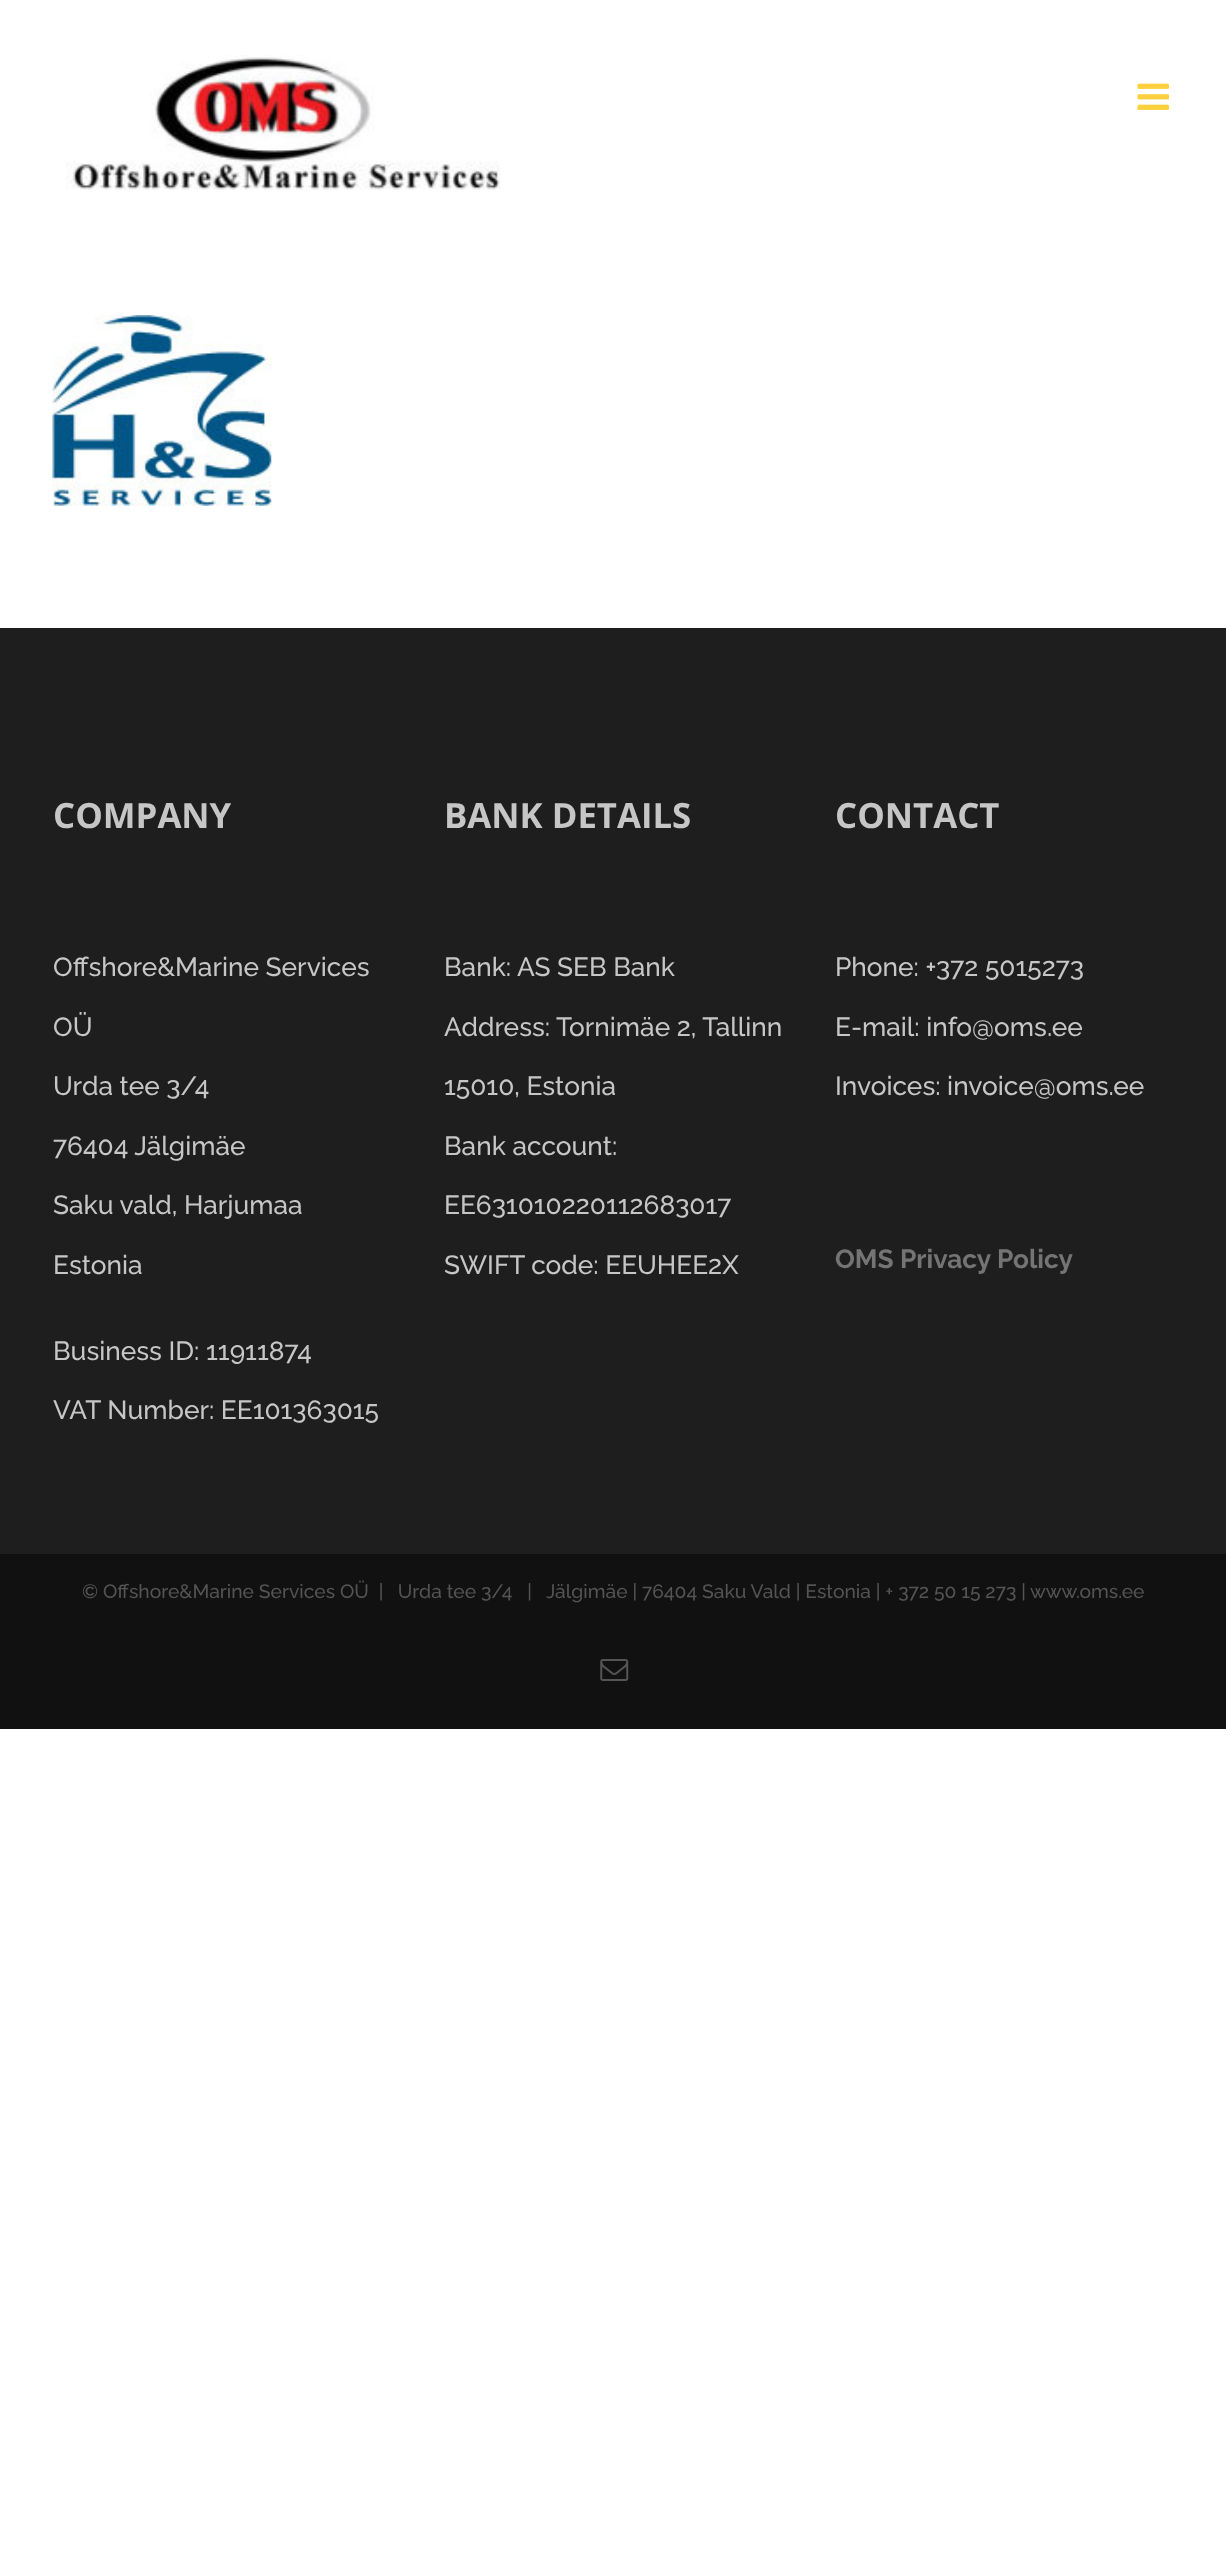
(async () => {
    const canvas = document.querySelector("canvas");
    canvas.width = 1226;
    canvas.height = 2560;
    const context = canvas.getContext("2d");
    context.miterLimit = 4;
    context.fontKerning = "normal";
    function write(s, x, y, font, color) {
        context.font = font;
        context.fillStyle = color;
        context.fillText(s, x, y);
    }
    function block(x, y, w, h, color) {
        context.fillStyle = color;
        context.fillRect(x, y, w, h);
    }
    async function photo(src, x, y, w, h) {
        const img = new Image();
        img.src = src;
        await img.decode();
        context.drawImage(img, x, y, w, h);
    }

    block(0, 0, 1226, 2560, "rgb(255, 255, 255)");
    await photo("media/1.png", 66, 55, 435, 135);
    await photo("media/2.png", 1137, 83, 32, 27);
    await photo("media/3.png", 52, 315, 220, 191);
    block(0, 628, 1226, 926, "rgb(30, 30, 30)");
    write("COMPANY", 53, 828, "bold 34.75px Open Sans", "rgb(198, 198, 198)");
    write("Offshore&Marine Services", 53, 976, "500 26.25px Raleway", "rgb(198, 198, 198)");
    write("OÜ", 53, 1036, "500 26.25px Raleway", "rgb(198, 198, 198)");
    write("Urda tee 3/4", 53, 1095, "500 26.25px Raleway", "rgb(198, 198, 198)");
    write("76404 Jälgimäe", 53, 1155, "500 26.25px Raleway", "rgb(198, 198, 198)");
    write("Saku vald, Harjumaa", 53, 1214, "500 26.25px Raleway", "rgb(198, 198, 198)");
    write("Estonia", 53, 1274, "500 26.25px Raleway", "rgb(198, 198, 198)");
    write("Business ID: 11911874", 53, 1360, "500 26.25px Raleway", "rgb(198, 198, 198)");
    write("VAT Number: EE101363015", 53, 1419, "500 26.25px Raleway", "rgb(198, 198, 198)");
    write("BANK DETAILS", 444, 828, "bold 34.75px Open Sans", "rgb(198, 198, 198)");
    write("Bank: AS SEB Bank", 444, 976, "500 26.25px Raleway", "rgb(198, 198, 198)");
    write("Address: Tornimäe 2, Tallinn", 444, 1036, "500 26.25px Raleway", "rgb(198, 198, 198)");
    write("15010, Estonia", 444, 1095, "500 26.25px Raleway", "rgb(198, 198, 198)");
    write("Bank account:", 444, 1155, "500 26.25px Raleway", "rgb(198, 198, 198)");
    write("EE631010220112683017", 444, 1214, "500 26.25px Raleway", "rgb(198, 198, 198)");
    write("SWIFT code: EEUHEE2X", 444, 1274, "500 26.25px Raleway", "rgb(198, 198, 198)");
    write("CONTACT", 835, 828, "bold 34.75px Open Sans", "rgb(198, 198, 198)");
    write("Phone: +372 5015273", 835, 976, "500 26.25px Raleway", "rgb(198, 198, 198)");
    write("E-mail: info@oms.ee", 835, 1036, "500 26.25px Raleway", "rgb(198, 198, 198)");
    write("Invoices: invoice@oms.ee", 835, 1095, "500 26.25px Raleway", "rgb(198, 198, 198)");
    write("OMS Privacy Policy", 835, 1268, "bold 26.25px Raleway", "rgb(116, 116, 116)");
    block(0, 1554, 1226, 175, "rgb(17, 17, 17)");
    write("© Offshore&Marine Services OÜ  |   Urda tee 3/4   |   Jälgimäe | 76404 Saku Vald | Estonia | + 372 50 15 273 |", 82, 1598, "500 19.25px Raleway", "rgb(84, 84, 84)");
    write("www.oms.ee", 1030, 1598, "500 19.25px Raleway", "rgb(84, 84, 84)");
    await photo("media/4.png", 600, 1659, 29, 22);
})();
